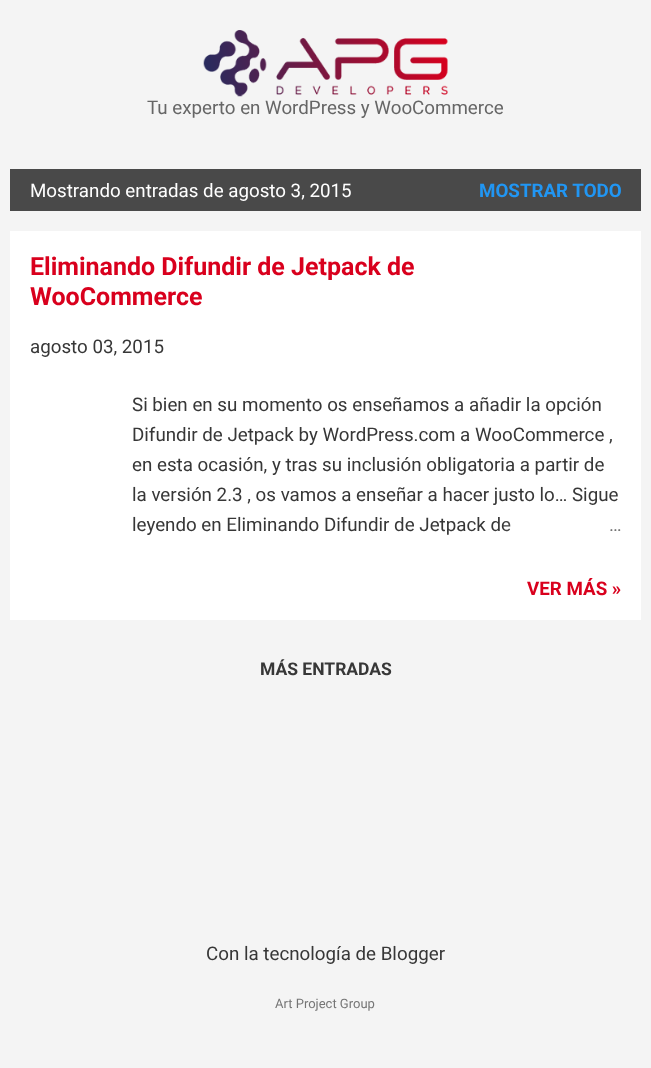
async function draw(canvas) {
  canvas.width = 651
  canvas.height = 1068
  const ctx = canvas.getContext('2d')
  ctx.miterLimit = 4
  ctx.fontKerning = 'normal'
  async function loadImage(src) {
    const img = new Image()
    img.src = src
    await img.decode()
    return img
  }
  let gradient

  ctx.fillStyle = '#f4f4f4'
  ctx.fillRect(0, 0, 651, 1068)
  ctx.drawImage(await loadImage('image0.png'), 203, 30, 245, 67)
  ctx.font = '18.75px Roboto'
  ctx.fillStyle = '#666'
  ctx.fillText('Tu experto en WordPress y WooCommerce', 147, 114)
  ctx.fillStyle = '#494949'
  ctx.fillRect(10, 169, 631, 42)
  ctx.fillStyle = '#fff'
  ctx.fillText('Mostrando entradas de agosto 3, 2015', 30, 197)
  ctx.font = 'bold 18.75px Roboto'
  ctx.fillStyle = '#2196f3'
  ctx.fillText('MOSTRAR TODO', 479, 197)
  ctx.fillStyle = '#fff'
  ctx.fillRect(10, 231, 631, 389)
  ctx.font = 'bold 25px Roboto'
  ctx.fillStyle = '#d9001d'
  ctx.fillText('Eliminando Difundir de Jetpack de', 30, 275)
  ctx.fillText('WooCommerce', 30, 305)
  ctx.font = '18.75px Roboto'
  ctx.fillStyle = '#373737'
  ctx.fillText('agosto 03, 2015', 30, 353)
  ctx.fillText('Si bien en su momento os enseñamos a añadir la opción', 132, 411)
  ctx.fillText('Difundir de Jetpack by WordPress.com a WooCommerce ,', 132, 441)
  ctx.fillText('en esta ocasión, y tras su inclusión obligatoria a partir de', 132, 471)
  ctx.fillText('la versión 2.3 , os vamos a enseñar a hacer justo lo… Sigue', 132, 501)
  ctx.fillText('leyendo en Eliminando Difundir de Jetpack de', 132, 531)
  gradient = ctx.createLinearGradient(621, 525, 501, 525)
  gradient.addColorStop(0, '#fff')
  gradient.addColorStop(0.2, '#fff')
  gradient.addColorStop(1, '#ffffff00')
  ctx.fillStyle = gradient
  ctx.fillRect(503, 521, 8, 10)
  ctx.fillStyle = '#757575'
  ctx.fillText('…', 609, 531)
  ctx.font = 'bold 18.75px Roboto'
  ctx.fillStyle = '#d9001d'
  ctx.fillText('VER MÁS »', 527, 595)
  ctx.font = 'bold 17.5px Roboto'
  ctx.fillStyle = '#373737'
  ctx.fillText('MÁS ENTRADAS', 260, 675)
  ctx.font = '18.75px Roboto'
  ctx.fillText('Con la tecnología de Blogger', 206, 960)
  ctx.font = '13px Roboto'
  ctx.fillStyle = '#757575'
  ctx.fillText('Art Project Group', 275, 1008)
}

draw(document.querySelector('canvas'))
